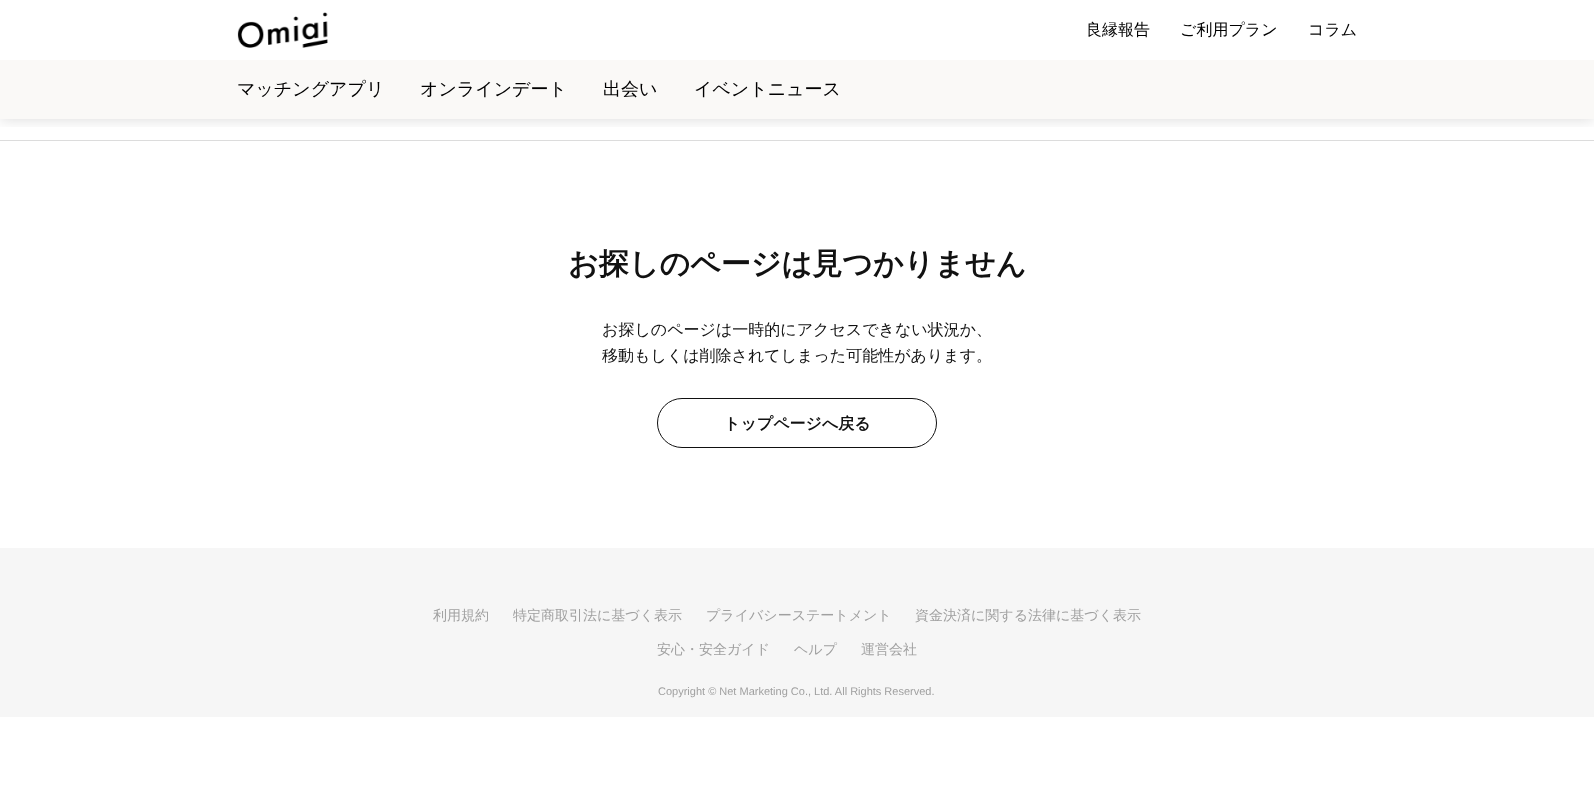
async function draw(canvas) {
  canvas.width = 1594
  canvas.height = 803
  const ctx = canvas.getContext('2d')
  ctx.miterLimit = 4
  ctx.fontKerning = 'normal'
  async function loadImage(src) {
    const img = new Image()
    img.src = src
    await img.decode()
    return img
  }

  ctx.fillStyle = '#fff'
  ctx.fillRect(0, 0, 1594, 803)
  ctx.fillStyle = '#dcdcdc'
  ctx.fillRect(0, 140, 1594, 1)
  ctx.save()
  ctx.beginPath()
  ctx.rect(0, 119, 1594, 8)
  ctx.clip()
  ctx.fillStyle = '#00000026'
  ctx.filter = 'blur(7.5px)'
  ctx.beginPath()
  ctx.rect(0, 0, 1594, 119)
  ctx.fill()
  ctx.filter = 'none'
  ctx.restore()
  ctx.drawImage(await loadImage('image0.png'), 237, 12, 91, 36)
  ctx.font = '500 16px WenQuanYi Zen Hei'
  ctx.fillStyle = '#000'
  ctx.fillText('良縁報告', 1086, 35)
  ctx.fillText('ご利用プラン', 1180, 35)
  ctx.fillText('コラム', 1308, 35)
  ctx.fillStyle = '#faf9f7'
  ctx.fillRect(0, 60, 1594, 59)
  ctx.font = '500 18px WenQuanYi Zen Hei'
  ctx.fillStyle = '#000'
  ctx.fillText('マッチングアプリ', 237, 95)
  ctx.fillText('オンラインデート', 420, 95)
  ctx.fillText('出会い', 603, 95)
  ctx.fillText('イベントニュース', 694, 95)
  ctx.font = 'bold 30px WenQuanYi Zen Hei'
  ctx.fillStyle = '#111'
  ctx.fillText('お探しのページは見つかりません', 568, 274)
  ctx.font = '500 16px WenQuanYi Zen Hei'
  ctx.fillText('お探しのページは一時的にアクセスできない状況か、', 602, 335)
  ctx.fillText('移動もしくは削除されてしまった可能性があります。', 602, 361)
  ctx.beginPath()
  ctx.roundRect(657.5, 398.5, 279, 49, 24.5)
  ctx.strokeStyle = '#111'
  ctx.stroke()
  ctx.font = 'bold 16px WenQuanYi Zen Hei'
  ctx.fillText('トップページへ戻る', 724, 429)
  ctx.fillStyle = '#f6f6f6'
  ctx.fillRect(0, 548, 1594, 169)
  ctx.font = '500 14px WenQuanYi Zen Hei'
  ctx.fillStyle = '#a0a0a0'
  ctx.fillText('利用規約', 433, 620)
  ctx.fillText('特定商取引法に基づく表示', 513, 620)
  ctx.fillText('プライバシーステートメント', 706, 620)
  ctx.fillText('資金決済に関する法律に基づく表示', 915, 620)
  ctx.fillText('安心・安全ガイド', 657, 654)
  ctx.fillText('ヘルプ', 794, 654)
  ctx.fillText('運営会社', 861, 654)
  ctx.font = '11px Liberation Sans'
  ctx.fillText('Copyright © Net Marketing Co., Ltd. All Rights Reserved.', 658, 695)
}

draw(document.querySelector('canvas'))
